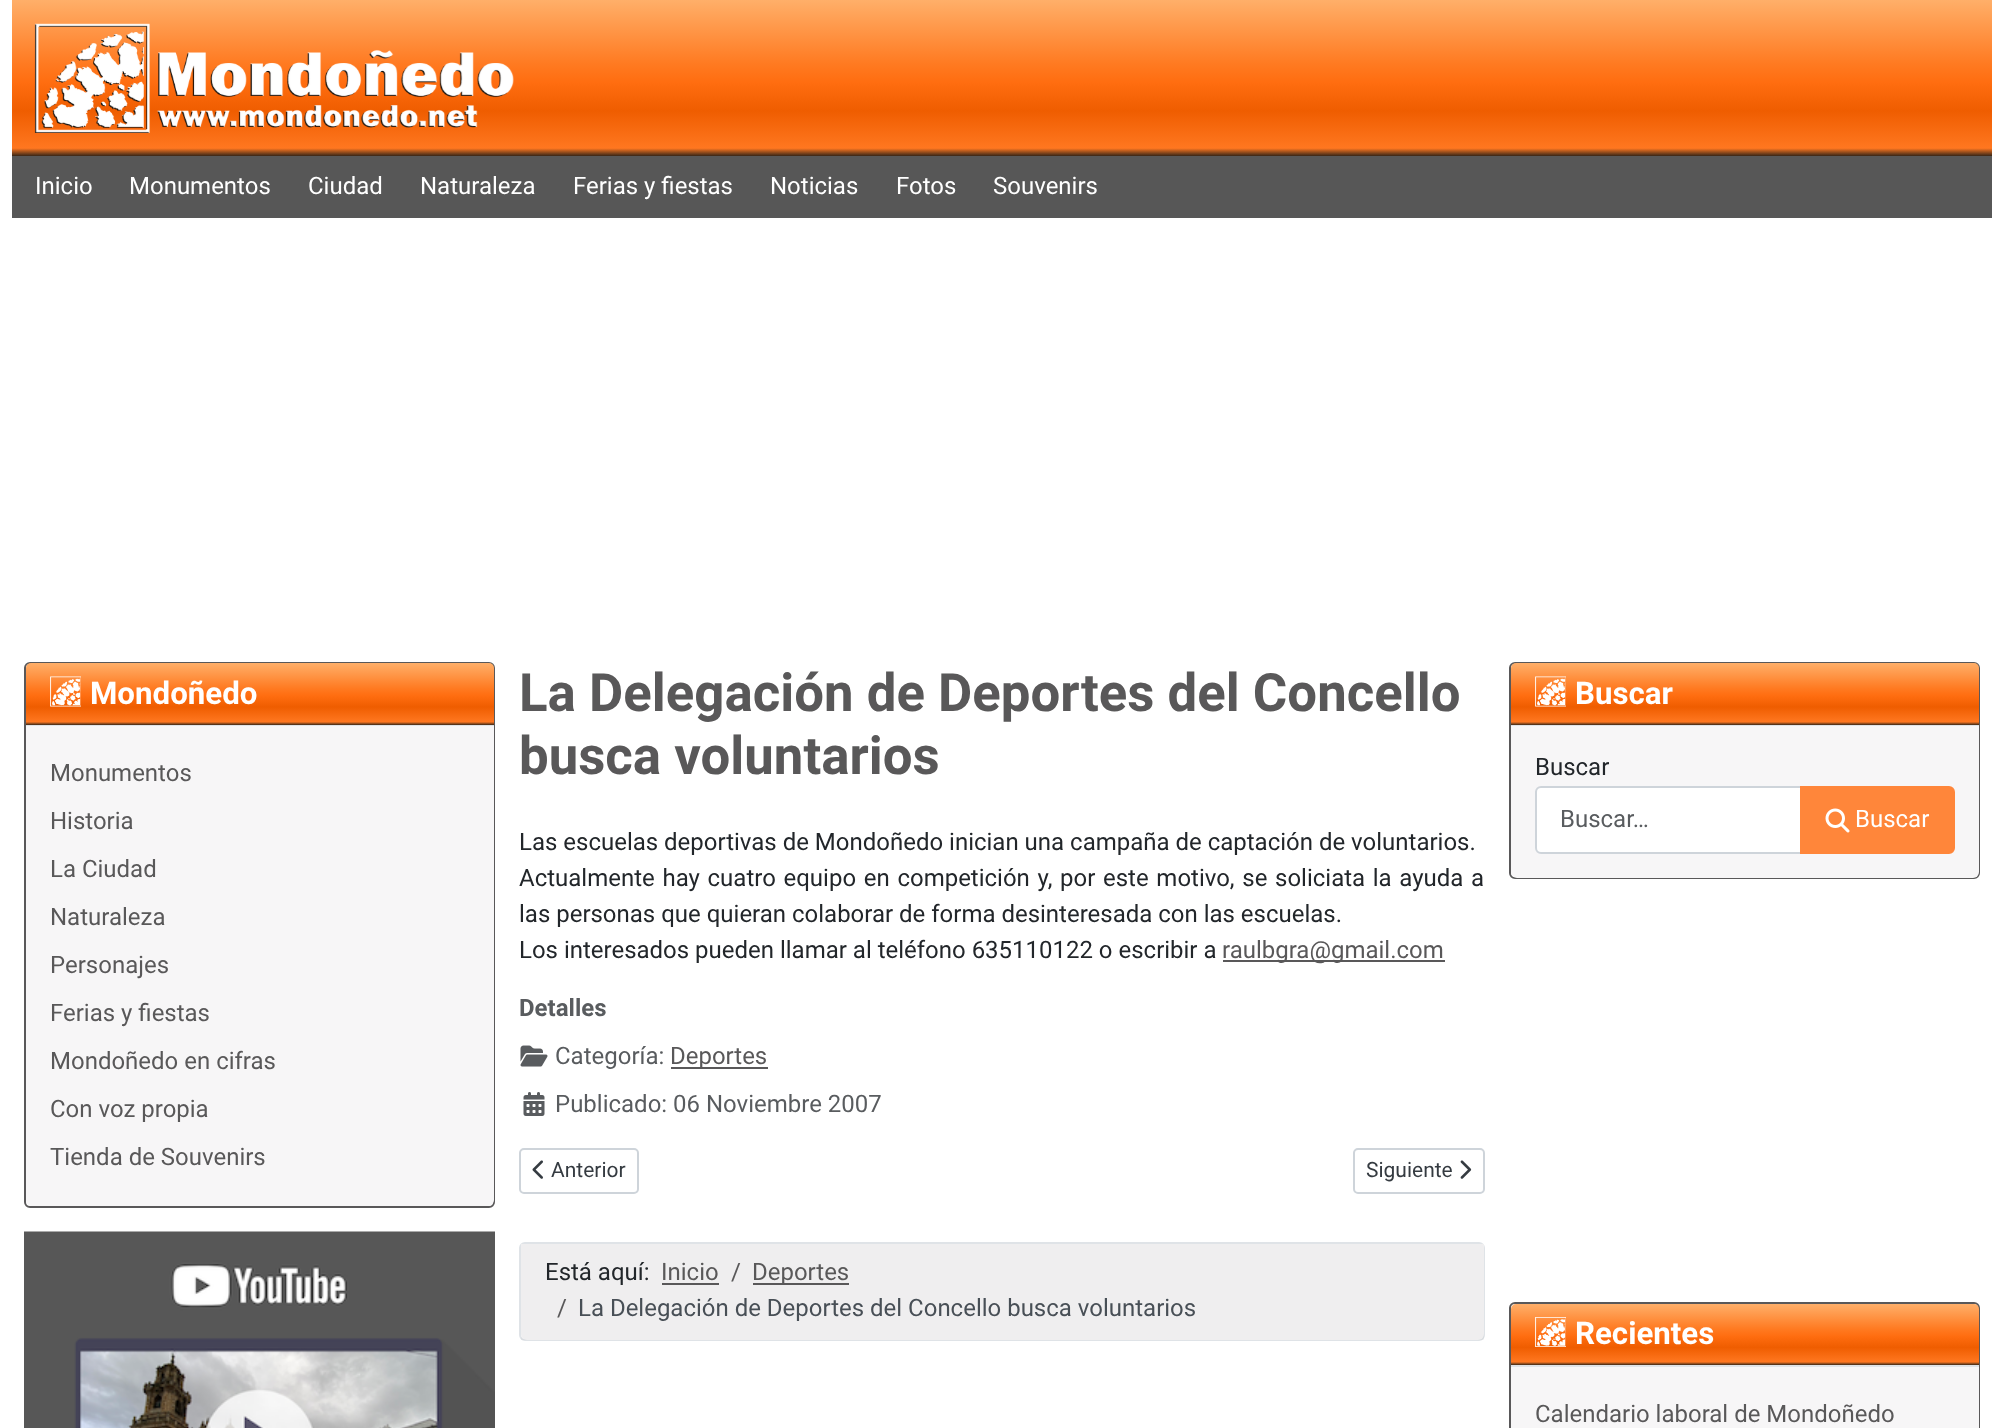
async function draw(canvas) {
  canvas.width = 2004
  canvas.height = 1428
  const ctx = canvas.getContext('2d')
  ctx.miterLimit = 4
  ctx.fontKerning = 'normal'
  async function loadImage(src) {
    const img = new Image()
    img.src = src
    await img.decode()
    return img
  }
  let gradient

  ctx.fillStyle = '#fff'
  ctx.fillRect(0, 0, 2004, 1428)
  gradient = ctx.createLinearGradient(1002, 0, 1002, 156)
  gradient.addColorStop(0, '#ffaf69')
  gradient.addColorStop(0.41, '#ff7a21')
  gradient.addColorStop(0.53, '#ff6d10')
  gradient.addColorStop(0.71, '#ef5d00')
  gradient.addColorStop(0.95, '#ff7720')
  gradient.addColorStop(1, '#372617')
  gradient.addColorStop(1, '#ff863a')
  ctx.fillStyle = gradient
  ctx.fillRect(12, 0, 1980, 156)
  ctx.drawImage(await loadImage('image0.png'), 34, 23, 480, 110)
  ctx.fillStyle = '#575757'
  ctx.fillRect(12, 156, 1980, 62)
  ctx.font = '24px Roboto'
  ctx.fillStyle = '#fff'
  ctx.fillText('Inicio', 35, 194)
  ctx.fillText('Monumentos', 129, 194)
  ctx.fillText('Ciudad', 308, 194)
  ctx.fillText('Naturaleza', 420, 194)
  ctx.fillText('Ferias y fiestas', 573, 194)
  ctx.fillText('Noticias', 770, 194)
  ctx.fillText('Fotos', 896, 194)
  ctx.fillText('Souvenirs', 993, 194)
  ctx.beginPath()
  ctx.roundRect(25, 663, 469, 544, 5)
  ctx.strokeStyle = '#595859'
  ctx.lineWidth = 2
  ctx.stroke()
  gradient = ctx.createLinearGradient(260, 663, 260, 725)
  gradient.addColorStop(0, '#ffaf69')
  gradient.addColorStop(0.41, '#ff7a21')
  gradient.addColorStop(0.53, '#ff6d10')
  gradient.addColorStop(0.71, '#ef5d00')
  gradient.addColorStop(0.95, '#ff7720')
  gradient.addColorStop(1, '#372617')
  gradient.addColorStop(1, '#ff863a')
  ctx.fillStyle = gradient
  ctx.beginPath()
  ctx.roundRect(26, 663, 468, 62, [5, 5, 0, 0])
  ctx.fill()
  ctx.fillStyle = '#dfe3e7'
  ctx.fillRect(26, 725, 468, 1)
  ctx.drawImage(await loadImage('image1.png'), 50, 676, 31, 31)
  ctx.font = 'bold 31.25px Roboto'
  ctx.fillStyle = '#fff'
  ctx.fillText('Mondoñedo', 90, 704)
  ctx.fillStyle = '#f7f6f7'
  ctx.beginPath()
  ctx.roundRect(26, 726, 468, 480, [0, 0, 6, 6])
  ctx.fill()
  ctx.font = '24px Roboto'
  ctx.fillStyle = '#595859'
  ctx.fillText('Monumentos', 50, 781)
  ctx.fillText('Historia', 50, 829)
  ctx.fillText('La Ciudad', 50, 877)
  ctx.fillText('Naturaleza', 50, 925)
  ctx.fillText('Personajes', 50, 973)
  ctx.fillText('Ferias y fiestas', 50, 1021)
  ctx.fillText('Mondoñedo en cifras', 50, 1069)
  ctx.fillText('Con voz propia', 50, 1117)
  ctx.fillText('Tienda de Souvenirs', 50, 1165)
  ctx.drawImage(await loadImage('image2.png'), 24, 1231, 471, 197)
  ctx.font = 'bold 52.75px Roboto'
  ctx.fillText('La Delegación de Deportes del Concello', 519, 711)
  ctx.fillText('busca voluntarios', 519, 774)
  ctx.font = '24px Roboto'
  ctx.fillStyle = '#22262a'
  ctx.fillText('Las escuelas deportivas de Mondoñedo inician una campaña de captación de voluntarios.', 519, 850)
  ctx.wordSpacing = '1.75px'
  ctx.fillText('Actualmente hay cuatro equipo en competición y, por este motivo, se soliciata la ayuda a', 519, 886)
  ctx.wordSpacing = '0px'
  ctx.fillText('las personas que quieran colaborar de forma desinteresada con las escuelas.', 519, 922)
  ctx.fillText('Los interesados pueden llamar al teléfono 635110122 o escribir a', 519, 958)
  ctx.fillStyle = '#595859'
  ctx.fillRect(1223, 960, 222, 2)
  ctx.fillText('raulbgra@gmail.com', 1222, 958)
  ctx.font = 'bold 24px Roboto'
  ctx.fillStyle = '#595c5f'
  ctx.fillText('Detalles', 519, 1016)
  ctx.drawImage(await loadImage('image3.png'), 520, 1045, 28, 22)
  ctx.font = '24px Roboto'
  ctx.fillText('Categoría:', 555, 1064)
  ctx.fillStyle = '#595859'
  ctx.fillRect(671, 1067, 97, 2)
  ctx.fillText('Deportes', 670, 1064)
  ctx.drawImage(await loadImage('image4.png'), 523, 1092, 22, 24)
  ctx.fillStyle = '#595c5f'
  ctx.fillText('Publicado: 06 Noviembre 2007', 555, 1112)
  ctx.beginPath()
  ctx.roundRect(520, 1149, 118, 44, 4)
  ctx.strokeStyle = '#ced4da'
  ctx.stroke()
  ctx.drawImage(await loadImage('image5.png'), 532, 1160, 11, 19)
  ctx.font = '21px Roboto'
  ctx.fillStyle = '#353b41'
  ctx.fillText('Anterior', 551, 1177)
  ctx.beginPath()
  ctx.roundRect(1354, 1149, 130, 44, 4)
  ctx.stroke()
  ctx.fillText('Siguiente', 1366, 1177)
  ctx.drawImage(await loadImage('image6.png'), 1460, 1160, 12, 19)
  ctx.beginPath()
  ctx.roundRect(520, 1243, 964, 97, 5)
  ctx.strokeStyle = '#dfe3e7'
  ctx.stroke()
  ctx.fillStyle = '#f7f6f7'
  ctx.beginPath()
  ctx.roundRect(521, 1244, 963, 96, [0, 0, 6, 6])
  ctx.fill()
  ctx.fillStyle = '#00000008'
  ctx.fillRect(521, 1244, 963, 96)
  ctx.font = '24px Roboto'
  ctx.fillStyle = '#22262a'
  ctx.fillText('Está aquí:', 545, 1280)
  ctx.fillStyle = '#595859'
  ctx.fillText('Inicio', 661, 1280)
  ctx.fillRect(662, 1283, 57, 2)
  ctx.fillText('/', 731, 1280)
  ctx.fillRect(753, 1283, 96, 2)
  ctx.fillText('Deportes', 752, 1280)
  ctx.fillText('/', 557, 1316)
  ctx.fillStyle = '#484f56'
  ctx.fillText('La Delegación de Deportes del Concello busca voluntarios', 578, 1316)
  ctx.beginPath()
  ctx.roundRect(1510, 663, 469, 215, 5)
  ctx.strokeStyle = '#595859'
  ctx.stroke()
  gradient = ctx.createLinearGradient(1745, 663, 1745, 725)
  gradient.addColorStop(0, '#ffaf69')
  gradient.addColorStop(0.41, '#ff7a21')
  gradient.addColorStop(0.53, '#ff6d10')
  gradient.addColorStop(0.71, '#ef5d00')
  gradient.addColorStop(0.95, '#ff7720')
  gradient.addColorStop(1, '#372617')
  gradient.addColorStop(1, '#ff863a')
  ctx.fillStyle = gradient
  ctx.beginPath()
  ctx.roundRect(1511, 663, 468, 62, [5, 5, 0, 0])
  ctx.fill()
  ctx.fillStyle = '#dfe3e7'
  ctx.fillRect(1511, 725, 468, 1)
  ctx.drawImage(await loadImage('image1.png'), 1535, 676, 31, 31)
  ctx.font = 'bold 31.25px Roboto'
  ctx.fillStyle = '#fff'
  ctx.fillText('Buscar', 1575, 704)
  ctx.fillStyle = '#f7f6f7'
  ctx.beginPath()
  ctx.roundRect(1511, 726, 468, 152, [0, 0, 6, 6])
  ctx.fill()
  ctx.font = '24px Roboto'
  ctx.fillStyle = '#22262a'
  ctx.fillText('Buscar', 1535, 775)
  ctx.fillStyle = '#fff'
  ctx.beginPath()
  ctx.roundRect(1536, 787, 265, 66, [5, 0, 0, 5])
  ctx.fill()
  ctx.strokeStyle = '#ced4da'
  ctx.stroke()
  ctx.fillStyle = '#595c5f'
  ctx.fillText('Buscar…', 1560, 827)
  ctx.fillStyle = '#ff863a'
  ctx.beginPath()
  ctx.roundRect(1801, 787, 153, 66, [0, 5, 5, 0])
  ctx.fill()
  ctx.strokeStyle = '#ff863a'
  ctx.stroke()
  ctx.drawImage(await loadImage('image7.png'), 1825, 808, 25, 25)
  ctx.fillStyle = '#fff'
  ctx.fillText('Buscar', 1855, 827)
  ctx.beginPath()
  ctx.roundRect(1510, 1303, 469, 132, 5)
  ctx.strokeStyle = '#595859'
  ctx.stroke()
  gradient = ctx.createLinearGradient(1745, 1304, 1745, 1365)
  gradient.addColorStop(0, '#ffaf69')
  gradient.addColorStop(0.41, '#ff7a21')
  gradient.addColorStop(0.53, '#ff6d10')
  gradient.addColorStop(0.71, '#ef5d00')
  gradient.addColorStop(0.95, '#ff7720')
  gradient.addColorStop(1, '#372617')
  gradient.addColorStop(1, '#ff863a')
  ctx.fillStyle = gradient
  ctx.beginPath()
  ctx.roundRect(1511, 1304, 468, 61, [5, 5, 0, 0])
  ctx.fill()
  ctx.fillStyle = '#dfe3e7'
  ctx.fillRect(1511, 1365, 468, 2)
  ctx.drawImage(await loadImage('image8.png'), 1535, 1317, 31, 30)
  ctx.font = 'bold 31.25px Roboto'
  ctx.fillStyle = '#fff'
  ctx.fillText('Recientes', 1575, 1344)
  ctx.fillStyle = '#f7f6f7'
  ctx.fillRect(1511, 1367, 468, 61)
  ctx.font = '24px Roboto'
  ctx.fillStyle = '#595859'
  ctx.fillText('Calendario laboral de Mondoñedo', 1535, 1422)
}

draw(document.querySelector('canvas'))
